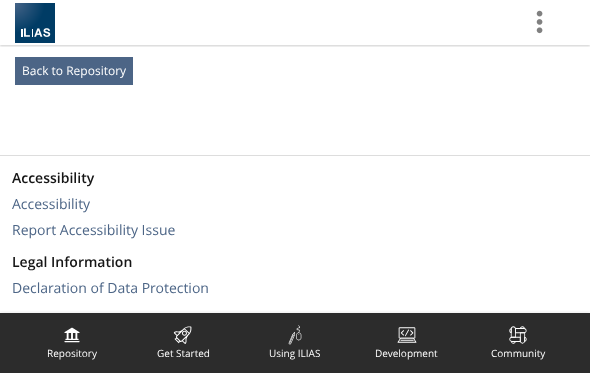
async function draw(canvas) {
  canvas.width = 590
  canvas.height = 373
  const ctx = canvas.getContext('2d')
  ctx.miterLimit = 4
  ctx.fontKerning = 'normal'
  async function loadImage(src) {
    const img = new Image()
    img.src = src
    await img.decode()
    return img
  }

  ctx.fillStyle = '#fff'
  ctx.fillRect(0, 0, 590, 373)
  ctx.save()
  ctx.beginPath()
  ctx.rect(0, 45, 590, 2)
  ctx.clip()
  ctx.fillStyle = '#0000001a'
  ctx.filter = 'blur(1px)'
  ctx.beginPath()
  ctx.rect(0, 1, 590, 45)
  ctx.fill()
  ctx.filter = 'none'
  ctx.filter = 'blur(1px)'
  ctx.beginPath()
  ctx.rect(0, 1, 590, 45)
  ctx.fill()
  ctx.filter = 'none'
  ctx.restore()
  ctx.drawImage(await loadImage('image0.png'), 15, 3, 40, 40)
  ctx.drawImage(await loadImage('image1.png'), 536, 10, 7, 24)
  ctx.fillStyle = '#4c6586'
  ctx.fillRect(15, 57, 118, 28)
  ctx.font = '12px Open Sans'
  ctx.fillStyle = '#fff'
  ctx.fillText('Back to Repository', 22, 75)
  ctx.fillStyle = '#ddd'
  ctx.fillRect(0, 155, 590, 1)
  ctx.font = '600 14px Open Sans'
  ctx.fillStyle = '#161616'
  ctx.fillText('Accessibility', 12, 183)
  ctx.font = '14px Open Sans'
  ctx.fillStyle = '#4c6586'
  ctx.fillText('Accessibility', 12, 209)
  ctx.fillText('Report Accessibility Issue', 12, 235)
  ctx.font = '600 14px Open Sans'
  ctx.fillStyle = '#161616'
  ctx.fillText('Legal Information', 12, 267)
  ctx.font = '14px Open Sans'
  ctx.fillStyle = '#4c6586'
  ctx.fillText('Declaration of Data Protection', 12, 293)
  ctx.fillStyle = '#2c2c2c'
  ctx.fillRect(0, 313, 590, 60)
  ctx.save()
  ctx.beginPath()
  ctx.rect(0, 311, 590, 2)
  ctx.clip()
  ctx.fillStyle = '#0000001a'
  ctx.filter = 'blur(2px)'
  ctx.beginPath()
  ctx.rect(0, 313, 590, 60)
  ctx.fill()
  ctx.filter = 'none'
  ctx.restore()
  ctx.drawImage(await loadImage('image2.png'), 64, 327, 16, 16)
  ctx.font = '10px Open Sans'
  ctx.fillStyle = '#fff'
  ctx.fillText('Repository', 47, 357)
  ctx.drawImage(await loadImage('image3.png'), 173, 326, 19, 18)
  ctx.fillText('Get Started', 157, 357)
  ctx.drawImage(await loadImage('image4.png'), 288, 325, 14, 20)
  ctx.fillText('Using ILIAS', 269, 357)
  ctx.drawImage(await loadImage('image5.png'), 397, 327, 20, 16)
  ctx.fillText('Development', 375, 357)
  ctx.drawImage(await loadImage('image6.png'), 509, 326, 18, 18)
  ctx.fillText('Community', 491, 357)
}

draw(document.querySelector('canvas'))
